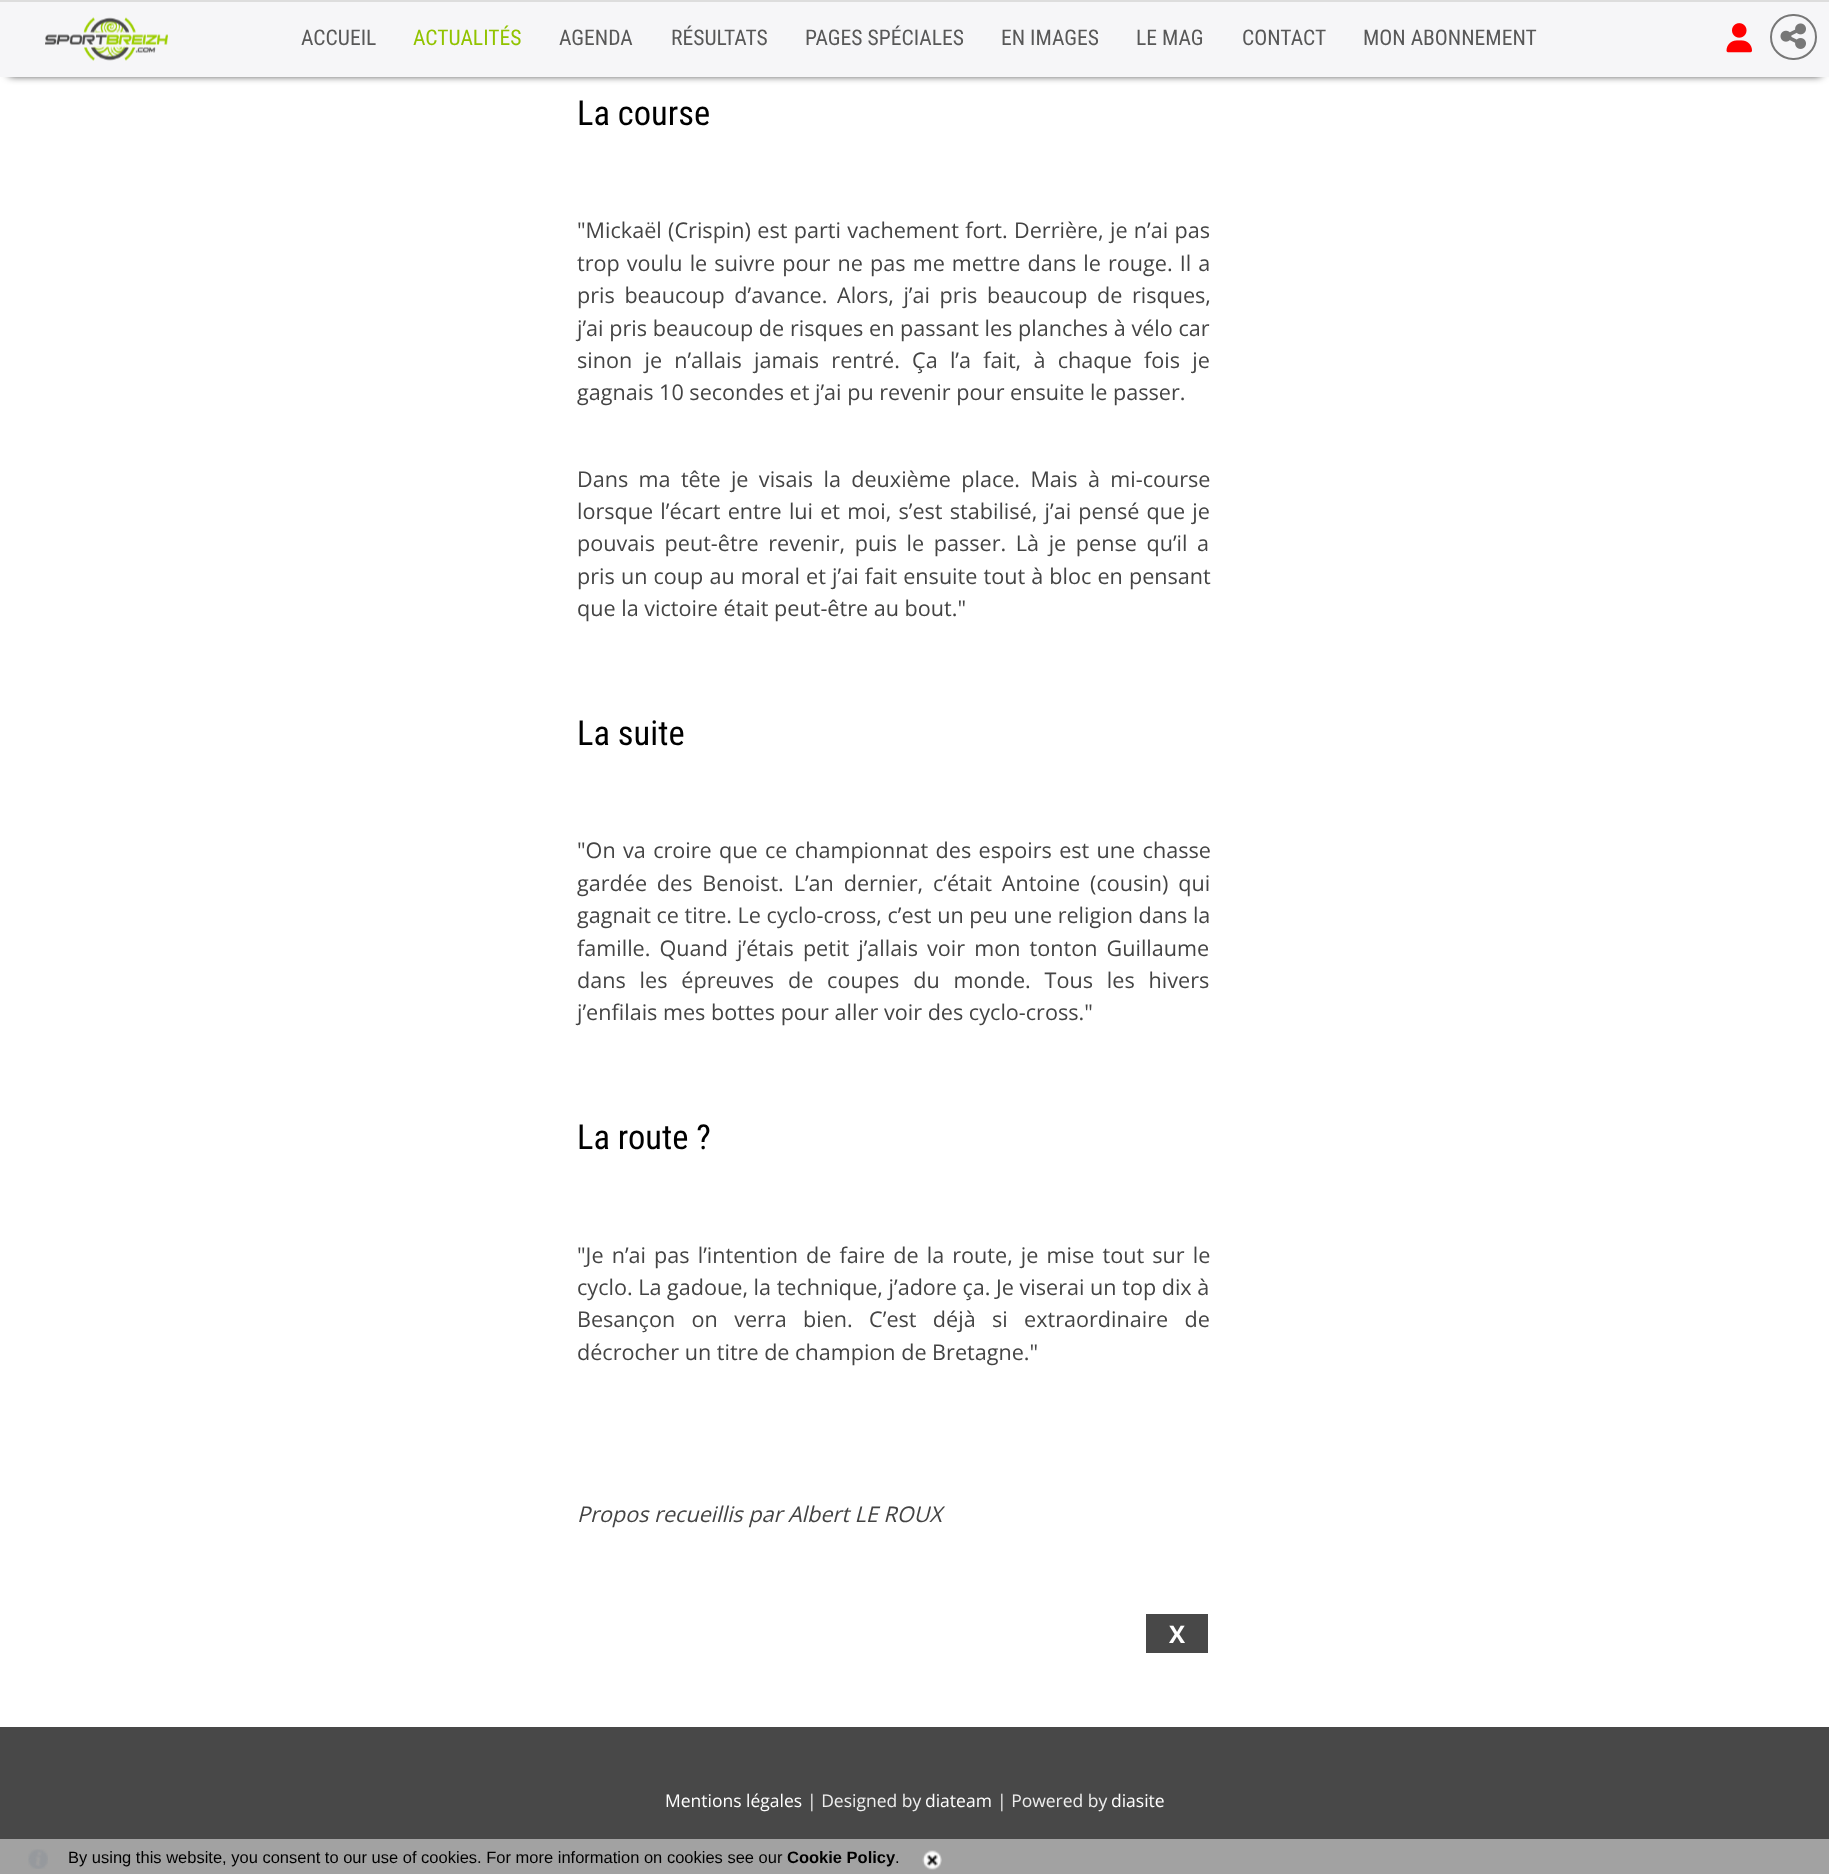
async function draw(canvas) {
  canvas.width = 1829
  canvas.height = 1874
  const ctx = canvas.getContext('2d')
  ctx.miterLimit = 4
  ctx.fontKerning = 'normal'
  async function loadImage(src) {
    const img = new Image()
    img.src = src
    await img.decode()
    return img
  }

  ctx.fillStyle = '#fff'
  ctx.fillRect(0, 0, 1829, 1874)
  ctx.fillStyle = '#000'
  ctx.filter = 'blur(4px)'
  ctx.beginPath()
  ctx.rect(9, 17, 1812, 58)
  ctx.fill()
  ctx.filter = 'none'
  ctx.fillStyle = '#f6f6f8'
  ctx.fillRect(0, 2, 1829, 75)
  ctx.fillStyle = '#ddd'
  ctx.fillRect(0, 0, 1829, 2)
  ctx.drawImage(await loadImage('image0.png'), 45, 17, 123, 44)
  ctx.font = '21.6px Roboto Condensed'
  ctx.fillStyle = '#585858'
  ctx.fillText('ACCUEIL', 301, 45)
  ctx.fillStyle = '#91c300'
  ctx.fillText('ACTUALITÉS', 413, 45)
  ctx.fillStyle = '#585858'
  ctx.fillText('AGENDA', 559, 45)
  ctx.fillText('RÉSULTATS', 671, 45)
  ctx.fillText('PAGES SPÉCIALES', 805, 45)
  ctx.fillText('EN IMAGES', 1001, 45)
  ctx.fillText('LE MAG', 1136, 45)
  ctx.fillText('CONTACT', 1242, 45)
  ctx.fillText('MON ABONNEMENT', 1363, 45)
  ctx.drawImage(await loadImage('image1.png'), 1726, 23, 26, 30)
  ctx.beginPath()
  ctx.roundRect(1771, 15, 45, 44, 22)
  ctx.strokeStyle = '#777'
  ctx.lineWidth = 2
  ctx.stroke()
  ctx.drawImage(await loadImage('image2.png'), 1780, 23, 26, 26)
  ctx.font = '34.5px Roboto Condensed'
  ctx.fillStyle = '#000'
  ctx.fillText('La course', 577, 125)
  ctx.wordSpacing = '0.75px'
  ctx.font = '21.6px Open Sans'
  ctx.fillStyle = '#444'
  ctx.fillText('"Mickaël (Crispin) est parti vachement fort. Derrière, je n’ai pas', 577, 238)
  ctx.wordSpacing = '1.5px'
  ctx.fillText('trop voulu le suivre pour ne pas me mettre dans le rouge. Il a', 577, 271)
  ctx.wordSpacing = '4px'
  ctx.fillText('pris beaucoup d’avance. Alors, j’ai pris beaucoup de risques,', 577, 303)
  ctx.wordSpacing = '0.1px'
  ctx.fillText('j’ai pris beaucoup de risques en passant les planches à vélo car', 577, 336)
  ctx.wordSpacing = '6.6px'
  ctx.fillText('sinon je n’allais jamais rentré. Ça l’a fait, à chaque fois je', 577, 368)
  ctx.wordSpacing = '0px'
  ctx.fillText('gagnais 10 secondes et j’ai pu revenir pour ensuite le passer.', 577, 400)
  ctx.wordSpacing = '4.75px'
  ctx.fillText('Dans ma tête je visais la deuxième place. Mais à mi-course', 577, 487)
  ctx.wordSpacing = '1.6px'
  ctx.fillText('lorsque l’écart entre lui et moi, s’est stabilisé, j’ai pensé que je', 577, 519)
  ctx.wordSpacing = '4px'
  ctx.fillText('pouvais peut-être revenir, puis le passer. Là je pense qu’il a', 577, 551)
  ctx.wordSpacing = '0.5px'
  ctx.fillText('pris un coup au moral et j’ai fait ensuite tout à bloc en pensant', 577, 584)
  ctx.wordSpacing = '0px'
  ctx.fillText('que la victoire était peut-être au bout."', 577, 616)
  ctx.font = '34.5px Roboto Condensed'
  ctx.fillStyle = '#000'
  ctx.fillText('La suite', 577, 745)
  ctx.wordSpacing = '1.75px'
  ctx.font = '21.6px Open Sans'
  ctx.fillStyle = '#444'
  ctx.fillText('"On va croire que ce championnat des espoirs est une chasse', 577, 858)
  ctx.wordSpacing = '4.25px'
  ctx.fillText('gardée des Benoist. L’an dernier, c’était Antoine (cousin) qui', 577, 891)
  ctx.wordSpacing = '0px'
  ctx.fillText('gagnait ce titre. Le cyclo-cross, c’est un peu une religion dans la', 577, 923)
  ctx.wordSpacing = '3.5px'
  ctx.fillText('famille. Quand j’étais petit j’allais voir mon tonton Guillaume', 577, 956)
  ctx.wordSpacing = '8.25px'
  ctx.fillText('dans les épreuves de coupes du monde. Tous les hivers', 577, 988)
  ctx.wordSpacing = '0px'
  ctx.fillText('j’enfilais mes bottes pour aller voir des cyclo-cross."', 577, 1020)
  ctx.font = '34.5px Roboto Condensed'
  ctx.fillStyle = '#000'
  ctx.fillText('La route ?', 577, 1149)
  ctx.wordSpacing = '2.5px'
  ctx.font = '21.6px Open Sans'
  ctx.fillStyle = '#444'
  ctx.fillText('"Je n’ai pas l’intention de faire de la route, je mise tout sur le', 577, 1263)
  ctx.wordSpacing = '0px'
  ctx.fillText('cyclo. La gadoue, la technique, j’adore ça. Je viserai un top dix à', 577, 1295)
  ctx.wordSpacing = '10.75px'
  ctx.fillText('Besançon on verra bien. C’est déjà si extraordinaire de', 577, 1327)
  ctx.wordSpacing = '0px'
  ctx.fillText('décrocher un titre de champion de Bretagne."', 577, 1360)
  ctx.font = 'italic 21.6px Open Sans'
  ctx.fillText('Propos recueillis par Albert LE ROUX', 577, 1522)
  ctx.fillStyle = '#484848'
  ctx.fillRect(1146, 1614, 62, 39)
  ctx.font = 'bold 24px Open Sans'
  ctx.fillStyle = '#fff'
  ctx.fillText('X', 1169, 1643)
  ctx.fillStyle = '#484848'
  ctx.fillRect(0, 1727, 1829, 112)
  ctx.font = '17.5px Open Sans'
  ctx.fillStyle = '#fff'
  ctx.fillText('Mentions légales', 665, 1807)
  ctx.fillStyle = '#eee'
  ctx.fillText('| Designed by', 807, 1807)
  ctx.fillStyle = '#fff'
  ctx.fillText('diateam', 925, 1807)
  ctx.fillStyle = '#eee'
  ctx.fillText('| Powered by', 997, 1807)
  ctx.fillStyle = '#fff'
  ctx.fillText('diasite', 1111, 1807)
  ctx.fillStyle = '#a2a2a2'
  ctx.fillRect(0, 1839, 1829, 35)
  ctx.drawImage(await loadImage('image3.png'), 28, 1849, 20, 20)
  ctx.font = '16.5px Liberation Sans'
  ctx.fillStyle = '#000'
  ctx.fillText('By using this website, you consent to our use of cookies. For more information on cookies see our', 68, 1863)
  ctx.font = 'bold 16.5px Liberation Sans'
  ctx.fillText('Cookie Policy', 787, 1863)
  ctx.font = '16.5px Liberation Sans'
  ctx.fillText('.', 895, 1863)
  ctx.drawImage(await loadImage('image4.png'), 922, 1850, 20, 20)
}

draw(document.querySelector('canvas'))
